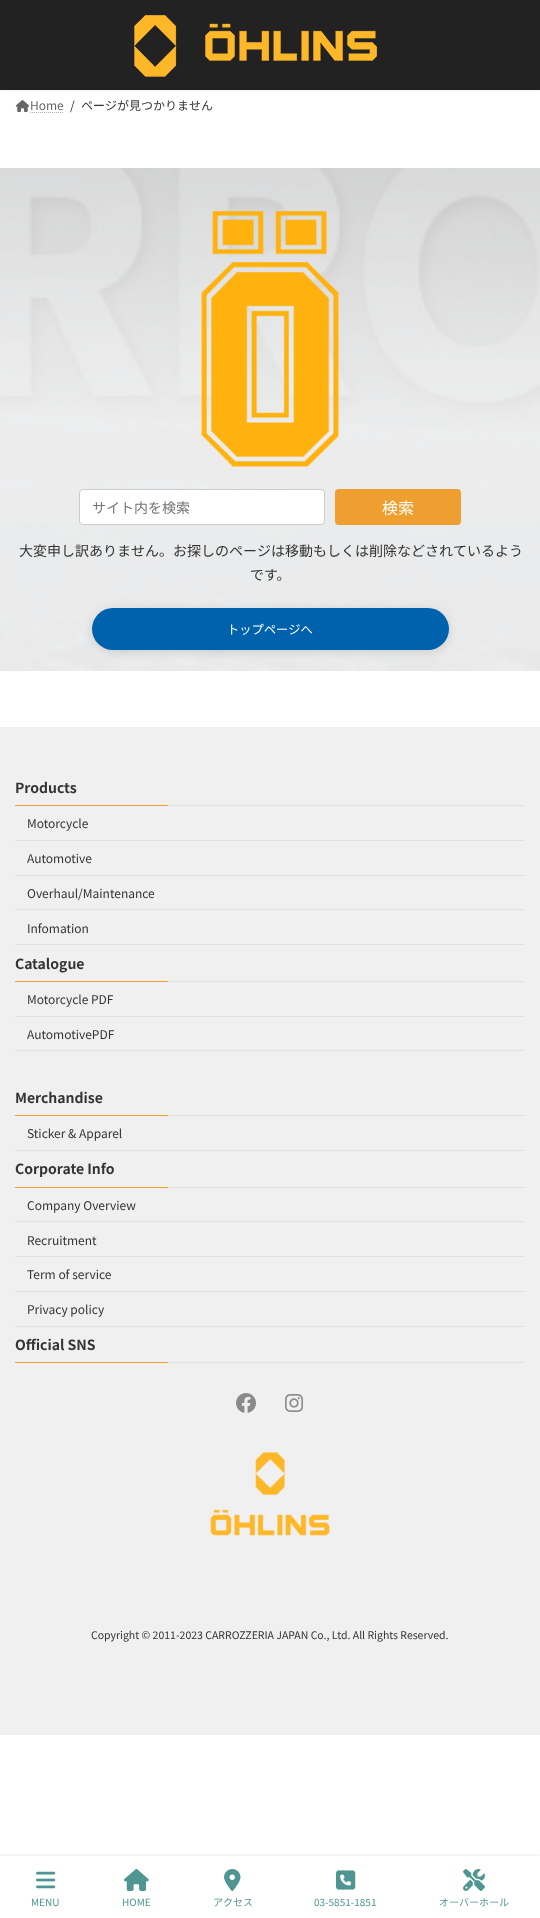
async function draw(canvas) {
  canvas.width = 540
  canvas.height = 1918
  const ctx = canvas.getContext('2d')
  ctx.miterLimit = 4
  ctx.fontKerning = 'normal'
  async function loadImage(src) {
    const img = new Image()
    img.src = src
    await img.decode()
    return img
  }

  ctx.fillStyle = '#fff'
  ctx.fillRect(0, 0, 540, 1918)
  ctx.fillStyle = '#0000000d'
  ctx.filter = 'blur(1.5px)'
  ctx.beginPath()
  ctx.rect(0, 1, 540, 90)
  ctx.fill()
  ctx.filter = 'none'
  ctx.fillStyle = '#222'
  ctx.fillRect(0, 0, 540, 90)
  ctx.drawImage(await loadImage('image0.png'), 134, 15, 243, 62)
  ctx.drawImage(await loadImage('image1.png'), 15, 100, 15, 12)
  ctx.font = '12px Noto Sans JP'
  ctx.fillStyle = '#666'
  ctx.fillText('Home', 30, 110)
  ctx.beginPath()
  ctx.moveTo(30, 112.5)
  ctx.lineTo(64, 112.5)
  ctx.strokeStyle = '#b3b3b3'
  ctx.setLineDash([1, 1])
  ctx.stroke()
  ctx.fillStyle = '#333'
  ctx.fillText('/', 70, 110)
  ctx.fillText('ページが見つかりません', 81, 110)
  ctx.drawImage(await loadImage('image2.png'), 0, 168, 540, 503)
  ctx.drawImage(await loadImage('image3.png'), 201, 210, 138, 257)
  ctx.fillStyle = '#fff'
  ctx.beginPath()
  ctx.roundRect(79.5, 489.5, 245, 35, 3.5)
  ctx.fill()
  ctx.strokeStyle = '#ccc'
  ctx.setLineDash([])
  ctx.stroke()
  ctx.font = '14px Noto Sans JP'
  ctx.fillStyle = '#757575'
  ctx.fillText('サイト内を検索', 92, 513)
  ctx.fillStyle = '#ef9f2f'
  ctx.beginPath()
  ctx.roundRect(335, 489, 126, 36, 4)
  ctx.fill()
  ctx.font = '16px Noto Sans JP'
  ctx.fillStyle = '#fff'
  ctx.fillText('検索', 382, 514)
  ctx.font = '14px Noto Sans JP'
  ctx.fillStyle = '#333'
  ctx.fillText('大変申し訳ありません。お探しのページは移動もしくは削除などされているよう', 19, 556)
  ctx.fillText('です。', 250, 580)
  ctx.fillStyle = '#0000001f'
  ctx.filter = 'blur(5px)'
  ctx.beginPath()
  ctx.roundRect(92, 610, 357, 42, 21)
  ctx.fill()
  ctx.filter = 'none'
  ctx.fillStyle = '#0061ad'
  ctx.beginPath()
  ctx.roundRect(92, 608, 357, 42, 21)
  ctx.fill()
  ctx.font = '12.25px Noto Sans JP'
  ctx.fillStyle = '#fff'
  ctx.fillText('トップページへ', 227, 634)
  ctx.fillStyle = '#f0f0f0'
  ctx.fillRect(0, 727, 540, 1008)
  ctx.fillStyle = '#e2e2e2'
  ctx.fillRect(168, 805, 357, 1)
  ctx.font = 'bold 14px Noto Sans JP'
  ctx.fillStyle = '#333'
  ctx.fillText('Products', 15, 793)
  ctx.fillStyle = '#ef9f2f'
  ctx.fillRect(15, 805, 153, 1)
  ctx.fillStyle = '#e2e2e2'
  ctx.fillRect(15, 840, 510, 1)
  ctx.font = '12px Noto Sans JP'
  ctx.fillStyle = '#333'
  ctx.fillText('Motorcycle', 27, 828)
  ctx.fillStyle = '#e2e2e2'
  ctx.fillRect(15, 875, 510, 1)
  ctx.fillStyle = '#333'
  ctx.fillText('Automotive', 27, 863)
  ctx.fillStyle = '#e2e2e2'
  ctx.fillRect(15, 909, 510, 1)
  ctx.fillStyle = '#333'
  ctx.fillText('Overhaul/Maintenance', 27, 898)
  ctx.fillStyle = '#e2e2e2'
  ctx.fillRect(15, 944, 510, 1)
  ctx.fillStyle = '#333'
  ctx.fillText('Infomation', 27, 933)
  ctx.fillStyle = '#e2e2e2'
  ctx.fillRect(168, 981, 357, 1)
  ctx.font = 'bold 14px Noto Sans JP'
  ctx.fillStyle = '#333'
  ctx.fillText('Catalogue', 15, 969)
  ctx.fillStyle = '#ef9f2f'
  ctx.fillRect(15, 981, 153, 1)
  ctx.fillStyle = '#e2e2e2'
  ctx.fillRect(15, 1016, 510, 1)
  ctx.font = '12px Noto Sans JP'
  ctx.fillStyle = '#333'
  ctx.fillText('Motorcycle PDF', 27, 1004)
  ctx.fillStyle = '#e2e2e2'
  ctx.fillRect(15, 1050, 510, 1)
  ctx.fillStyle = '#333'
  ctx.fillText('AutomotivePDF', 27, 1039)
  ctx.fillStyle = '#e2e2e2'
  ctx.fillRect(168, 1115, 357, 1)
  ctx.font = 'bold 14px Noto Sans JP'
  ctx.fillStyle = '#333'
  ctx.fillText('Merchandise', 15, 1103)
  ctx.fillStyle = '#ef9f2f'
  ctx.fillRect(15, 1115, 153, 1)
  ctx.fillStyle = '#e2e2e2'
  ctx.fillRect(15, 1150, 510, 1)
  ctx.font = '12px Noto Sans JP'
  ctx.fillStyle = '#333'
  ctx.fillText('Sticker & Apparel', 27, 1138)
  ctx.fillStyle = '#e2e2e2'
  ctx.fillRect(168, 1187, 357, 1)
  ctx.font = 'bold 14px Noto Sans JP'
  ctx.fillStyle = '#333'
  ctx.fillText('Corporate Info', 15, 1174)
  ctx.fillStyle = '#ef9f2f'
  ctx.fillRect(15, 1187, 153, 1)
  ctx.fillStyle = '#e2e2e2'
  ctx.fillRect(15, 1221, 510, 1)
  ctx.font = '12px Noto Sans JP'
  ctx.fillStyle = '#333'
  ctx.fillText('Company Overview', 27, 1210)
  ctx.fillStyle = '#e2e2e2'
  ctx.fillRect(15, 1256, 510, 1)
  ctx.fillStyle = '#333'
  ctx.fillText('Recruitment', 27, 1245)
  ctx.fillStyle = '#e2e2e2'
  ctx.fillRect(15, 1291, 510, 1)
  ctx.fillStyle = '#333'
  ctx.fillText('Term of service', 27, 1279)
  ctx.fillStyle = '#e2e2e2'
  ctx.fillRect(15, 1326, 510, 1)
  ctx.fillStyle = '#333'
  ctx.fillText('Privacy policy', 27, 1314)
  ctx.fillStyle = '#e2e2e2'
  ctx.fillRect(168, 1362, 357, 1)
  ctx.font = 'bold 14px Noto Sans JP'
  ctx.fillStyle = '#333'
  ctx.fillText('Official SNS', 15, 1350)
  ctx.fillStyle = '#ef9f2f'
  ctx.fillRect(15, 1362, 153, 1)
  ctx.drawImage(await loadImage('image4.png'), 236, 1393, 20, 20)
  ctx.drawImage(await loadImage('image5.png'), 285, 1394, 18, 18)
  ctx.drawImage(await loadImage('image6.png'), 210, 1452, 120, 84)
  ctx.font = '10.5px Noto Sans JP'
  ctx.fillStyle = '#333'
  ctx.fillText('Copyright © 2011-2023 CARROZZERIA JAPAN Co., Ltd. All Rights Reserved.', 91, 1639)
  ctx.save()
  ctx.beginPath()
  ctx.rect(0, 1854, 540, 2)
  ctx.clip()
  ctx.fillStyle = '#0000001f'
  ctx.filter = 'blur(2.5px)'
  ctx.beginPath()
  ctx.rect(0, 1856, 540, 62)
  ctx.fill()
  ctx.filter = 'none'
  ctx.restore()
  ctx.drawImage(await loadImage('image7.png'), 36, 1871, 20, 18)
  ctx.font = '10px Noto Sans JP'
  ctx.fillStyle = '#509792'
  ctx.fillText('MENU', 31, 1906)
  ctx.drawImage(await loadImage('image8.png'), 124, 1869, 25, 22)
  ctx.fillText('HOME', 122, 1906)
  ctx.drawImage(await loadImage('image9.png'), 224, 1869, 17, 22)
  ctx.fillText('アクセス', 213, 1906)
  ctx.drawImage(await loadImage('image10.png'), 336, 1870, 20, 20)
  ctx.fillText('03-5851-1851', 314, 1906)
  ctx.drawImage(await loadImage('image11.png'), 463, 1869, 22, 22)
  ctx.fillText('オーバーホール', 439, 1906)
}

draw(document.querySelector('canvas'))
